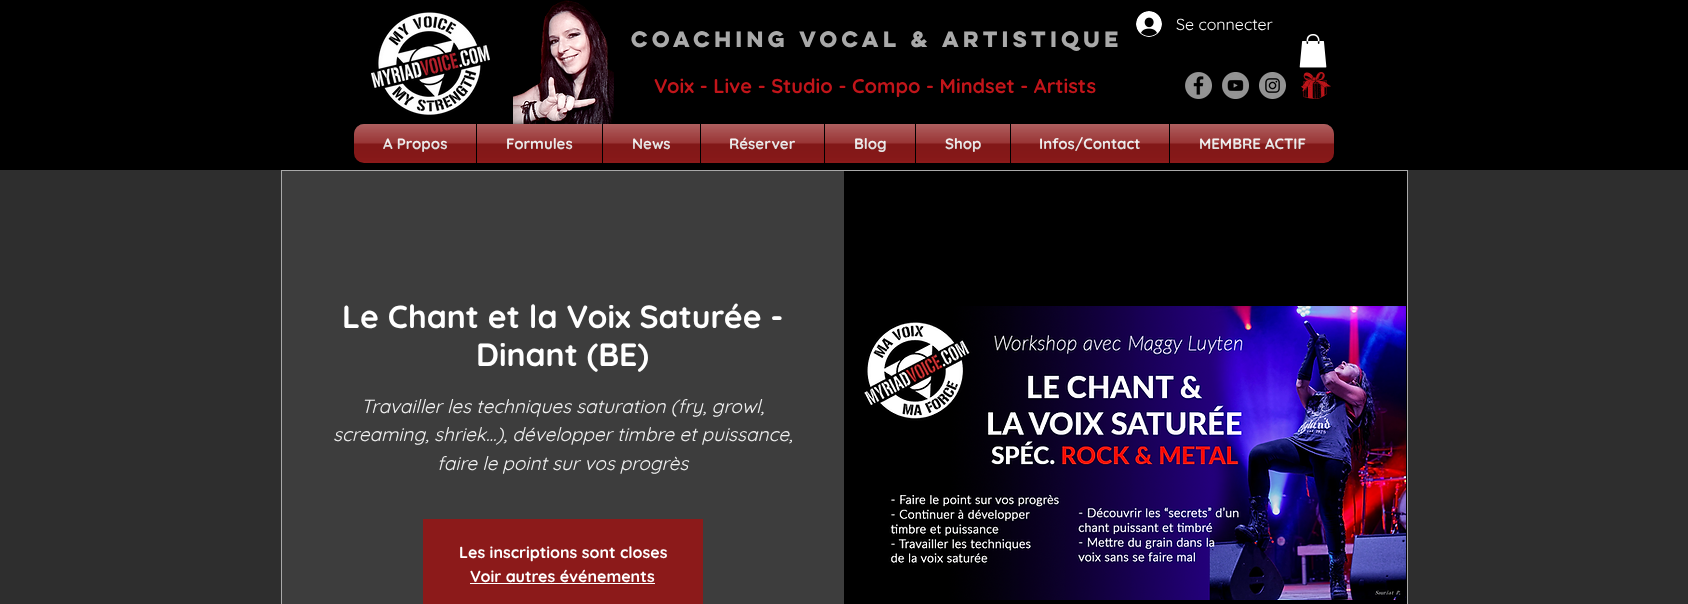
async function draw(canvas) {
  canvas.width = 1688
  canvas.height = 604
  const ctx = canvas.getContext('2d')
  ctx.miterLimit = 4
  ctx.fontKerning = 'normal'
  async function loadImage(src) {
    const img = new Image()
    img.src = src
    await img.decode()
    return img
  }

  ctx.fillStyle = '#000'
  ctx.fillRect(0, 0, 1688, 604)
  ctx.drawImage(await loadImage('image0.png'), 371, 12, 119, 103)
  ctx.drawImage(await loadImage('image1.png'), 513, 0, 101, 124)
  ctx.drawImage(await loadImage('image2.png'), 1136, 11, 26, 26)
  ctx.font = '16px Quicksand'
  ctx.fillStyle = '#fff'
  ctx.fillText('Se connecter', 1176, 30)
  ctx.font = 'bold 20px "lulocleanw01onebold"'
  ctx.fillStyle = '#a9a9a9'
  ctx.fillText('Coaching Vocal & Artistique', 631, 47)
  ctx.drawImage(await loadImage('image3.png'), 1299, 34, 28, 34)
  ctx.font = 'bold 20px Quicksand'
  ctx.fillStyle = '#c1151a'
  ctx.fillText('Voix - Live - Studio - Compo - Mindset - Artists', 654, 93)
  ctx.drawImage(await loadImage('image4.png'), 1185, 72, 27, 27)
  ctx.drawImage(await loadImage('image5.png'), 1222, 72, 27, 27)
  ctx.drawImage(await loadImage('image6.png'), 1259, 72, 27, 27)
  ctx.drawImage(await loadImage('image7.png'), 1301, 72, 30, 27)
  ctx.fillStyle = '#00000099'
  ctx.filter = 'blur(2px)'
  ctx.beginPath()
  ctx.roundRect(354, 125, 980, 38, 10)
  ctx.fill()
  ctx.filter = 'none'
  ctx.drawImage(await loadImage('image8.png'), 354, 124, 980, 31)
  ctx.fillStyle = '#8c1a1a'
  ctx.beginPath()
  ctx.roundRect(354, 124, 122, 39, [10, 0, 0, 10])
  ctx.fill()
  ctx.font = 'bold 15px Quicksand'
  ctx.fillStyle = '#f2f2f2'
  ctx.fillText('A Propos', 383, 149)
  ctx.drawImage(await loadImage('image9.png'), 354, 124, 122, 37)
  ctx.fillStyle = '#8c1a1a'
  ctx.fillRect(477, 124, 125, 39)
  ctx.fillStyle = '#000'
  ctx.fillRect(476, 124, 1, 19)
  ctx.fillStyle = '#f2f2f2'
  ctx.fillText('Formules', 506, 149)
  ctx.drawImage(await loadImage('image10.png'), 477, 124, 125, 37)
  ctx.fillStyle = '#8c1a1a'
  ctx.fillRect(603, 124, 97, 39)
  ctx.fillStyle = '#000'
  ctx.fillRect(602, 124, 1, 19)
  ctx.fillStyle = '#f2f2f2'
  ctx.fillText('News', 632, 149)
  ctx.drawImage(await loadImage('image11.png'), 603, 124, 97, 37)
  ctx.fillStyle = '#8c1a1a'
  ctx.fillRect(701, 124, 123, 39)
  ctx.fillStyle = '#000'
  ctx.fillRect(700, 124, 1, 19)
  ctx.fillStyle = '#f2f2f2'
  ctx.fillText('Réserver', 729, 149)
  ctx.drawImage(await loadImage('image12.png'), 701, 124, 123, 37)
  ctx.fillStyle = '#8c1a1a'
  ctx.fillRect(825, 124, 90, 39)
  ctx.fillStyle = '#000'
  ctx.fillRect(824, 124, 1, 19)
  ctx.fillStyle = '#f2f2f2'
  ctx.fillText('Blog', 854, 149)
  ctx.drawImage(await loadImage('image13.png'), 825, 124, 90, 37)
  ctx.fillStyle = '#8c1a1a'
  ctx.fillRect(916, 124, 94, 39)
  ctx.fillStyle = '#000'
  ctx.fillRect(915, 124, 1, 19)
  ctx.fillStyle = '#f2f2f2'
  ctx.fillText('Shop', 945, 149)
  ctx.drawImage(await loadImage('image14.png'), 916, 124, 94, 37)
  ctx.fillStyle = '#8c1a1a'
  ctx.fillRect(1011, 124, 158, 39)
  ctx.fillStyle = '#000'
  ctx.fillRect(1010, 124, 1, 19)
  ctx.fillStyle = '#f2f2f2'
  ctx.fillText('Infos/Contact', 1039, 149)
  ctx.drawImage(await loadImage('image15.png'), 1011, 124, 158, 37)
  ctx.fillStyle = '#8c1a1a'
  ctx.beginPath()
  ctx.roundRect(1169, 124, 165, 39, [0, 10, 10, 0])
  ctx.fill()
  ctx.fillStyle = '#000'
  ctx.fillRect(1169, 124, 1, 39)
  ctx.fillStyle = '#f2f2f2'
  ctx.fillText('MEMBRE ACTIF', 1199, 149)
  ctx.drawImage(await loadImage('image16.png'), 1170, 124, 164, 37)
  ctx.fillStyle = '#2e2e2e'
  ctx.fillRect(0, 170, 1688, 434)
  ctx.strokeStyle = '#a9a9a9'
  ctx.strokeRect(281.5, 170.5, 1126, 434)
  ctx.fillStyle = '#3d3d3d'
  ctx.fillRect(282, 171, 562, 433)
  ctx.font = 'bold 32px Quicksand'
  ctx.fillStyle = '#fff'
  ctx.fillText('Le Chant et la Voix Saturée -', 342, 328)
  ctx.fillText('Dinant (BE)', 476, 366)
  ctx.font = 'italic 19px Quicksand'
  ctx.fillStyle = '#f2f2f2'
  ctx.fillText('Travailler les techniques saturation (fry, growl,', 361, 413)
  ctx.fillText('screaming, shriek...), développer timbre et puissance,', 333, 441)
  ctx.fillText('faire le point sur vos progrès', 437, 470)
  ctx.fillStyle = '#8c1a1a'
  ctx.fillRect(423, 519, 280, 85)
  ctx.font = 'bold 16px Quicksand'
  ctx.fillStyle = '#fff'
  ctx.fillText('Les inscriptions sont closes', 459, 558)
  ctx.fillText('Voir autres événements', 470, 582)
  ctx.fillRect(470, 583, 185, 1)
  ctx.fillStyle = '#000'
  ctx.fillRect(844, 171, 563, 433)
  ctx.drawImage(await loadImage('image17.png'), 864, 306, 542, 294)
}

draw(document.querySelector('canvas'))
